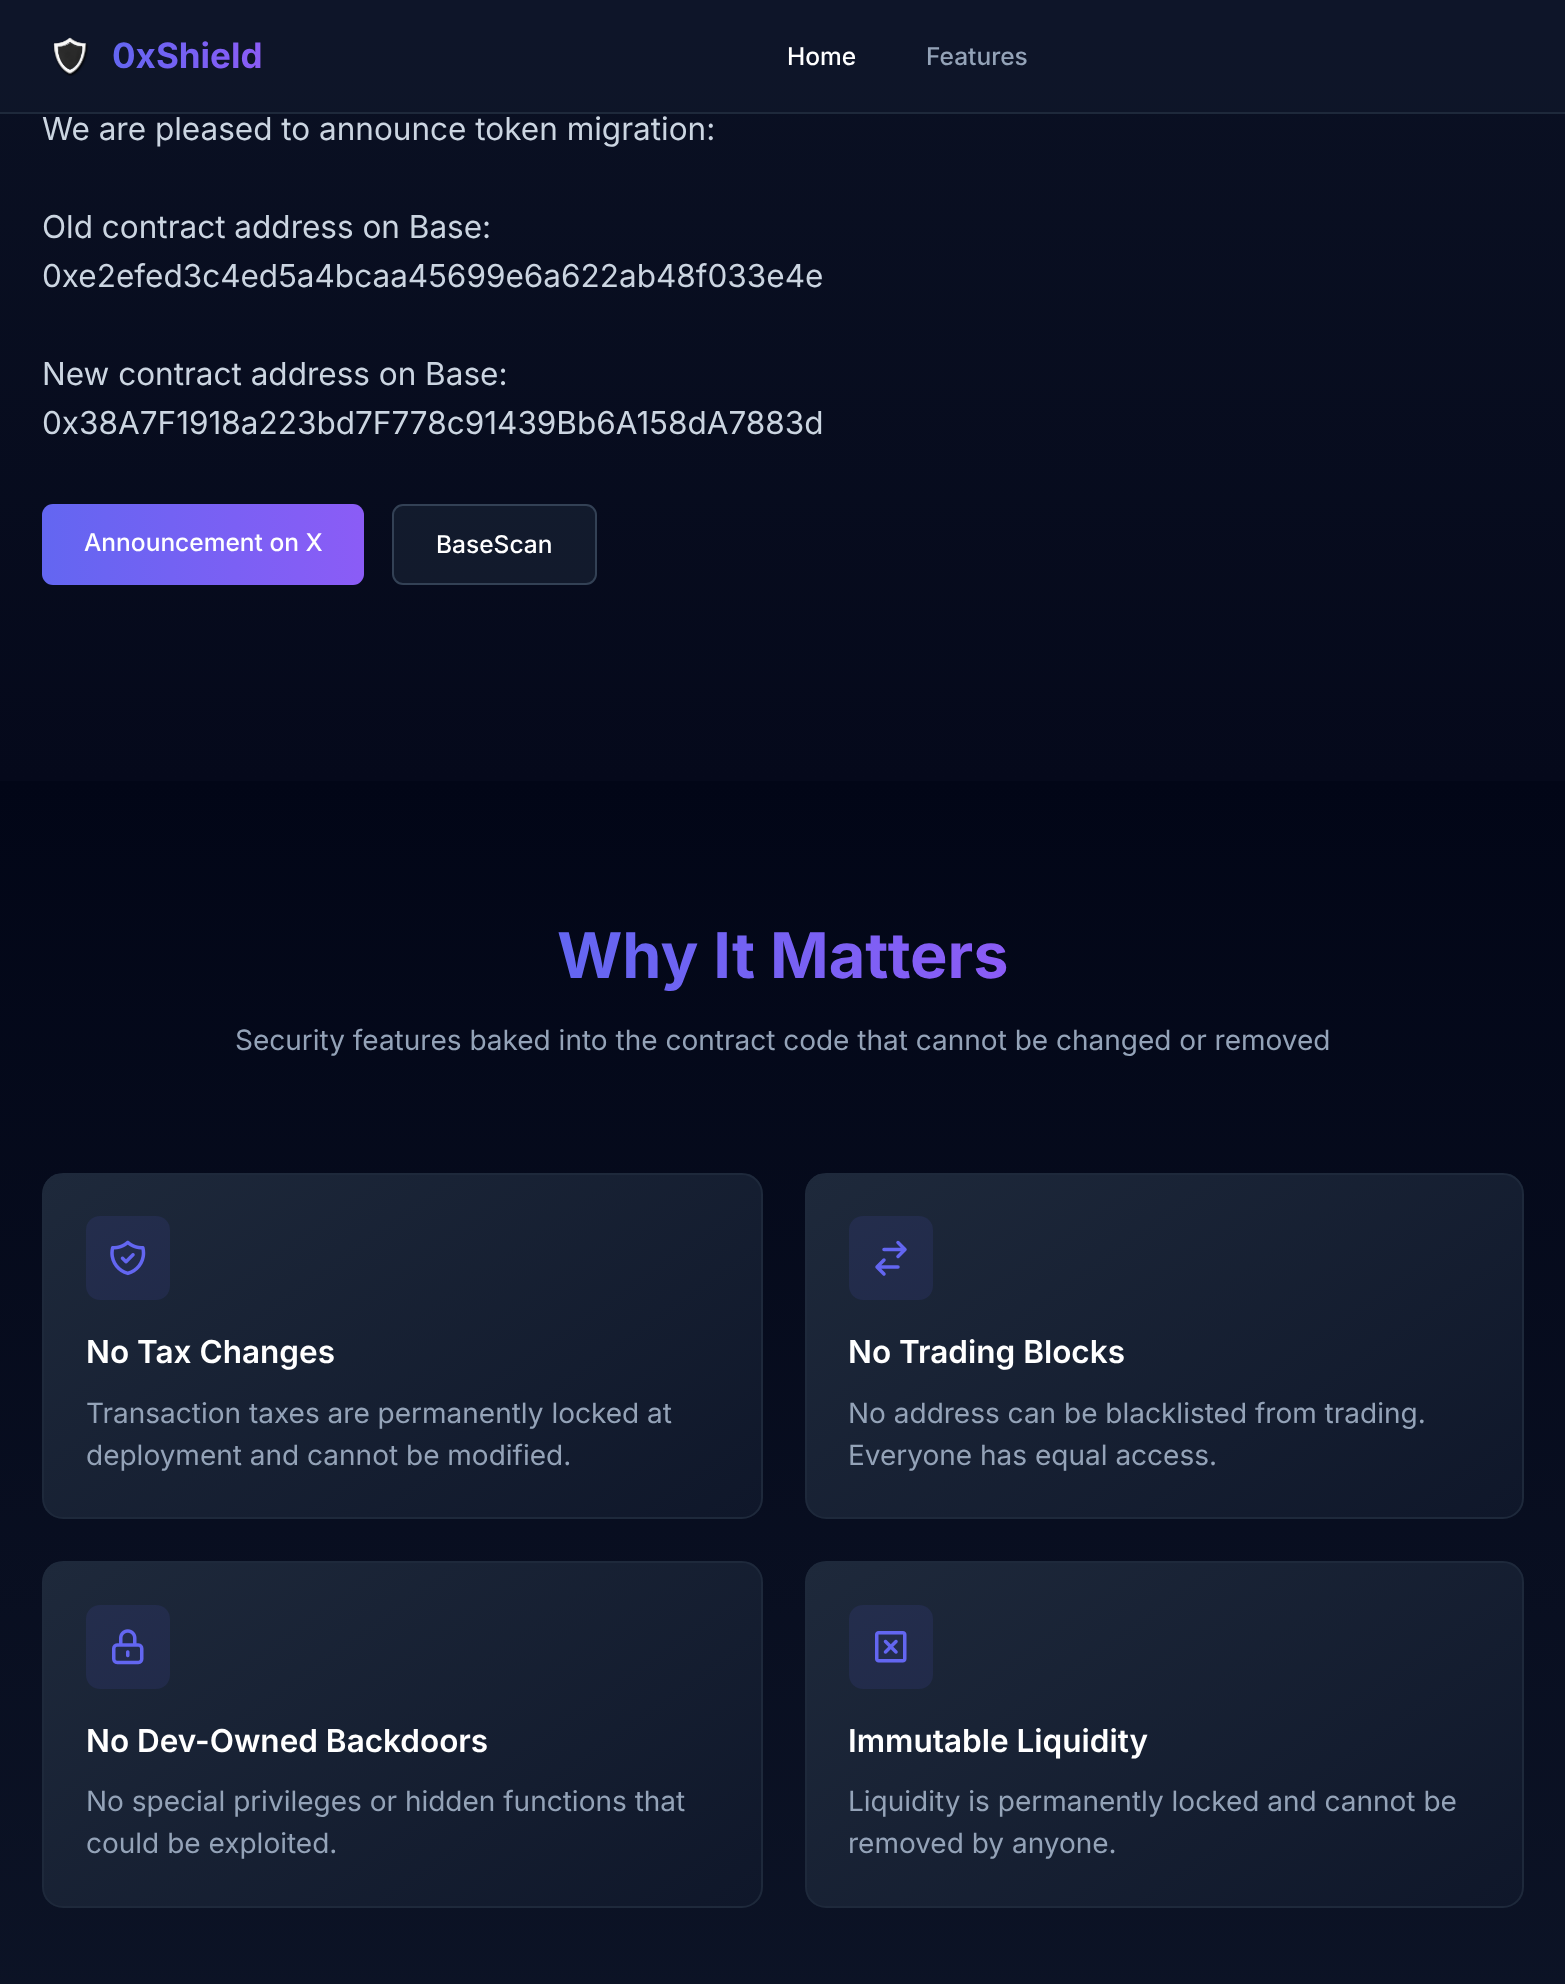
async function draw(canvas) {
  canvas.width = 1565
  canvas.height = 1984
  const ctx = canvas.getContext('2d')
  ctx.miterLimit = 4
  ctx.fontKerning = 'normal'
  async function loadImage(src) {
    const img = new Image()
    img.src = src
    await img.decode()
    return img
  }
  let gradient

  ctx.fillStyle = '#fff'
  ctx.fillRect(0, 0, 1565, 1984)
  gradient = ctx.createLinearGradient(783, -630, 783, 781)
  gradient.addColorStop(0, '#0f172a')
  gradient.addColorStop(1, '#05091b')
  ctx.fillStyle = gradient
  ctx.fillRect(0, 0, 1565, 781)
  ctx.fillStyle = '#0f172acc'
  ctx.fillRect(0, 0, 1565, 112)
  ctx.fillStyle = '#1e293b'
  ctx.fillRect(0, 112, 1565, 2)
  ctx.drawImage(await loadImage('image0.png'), 53, 37, 35, 39)
  ctx.font = 'bold 35px Inter'
  gradient = ctx.createLinearGradient(112, 56, 263, 56)
  gradient.addColorStop(0, '#6366f1')
  gradient.addColorStop(1, '#8b5cf6')
  ctx.fillStyle = gradient
  ctx.fillText('0xShield', 112, 68)
  ctx.font = '500 24.5px Inter'
  ctx.fillStyle = '#fff'
  ctx.fillText('Home', 787, 65)
  ctx.fillStyle = '#94a3b8'
  ctx.fillText('Features', 926, 65)
  ctx.font = '31.5px Inter'
  ctx.fillStyle = '#cbd5e1'
  ctx.fillText('We are pleased to announce token migration:', 42, 140)
  ctx.fillText('Old contract address on Base:', 42, 238)
  ctx.fillText('0xe2efed3c4ed5a4bcaa45699e6a622ab48f033e4e', 42, 287)
  ctx.fillText('New contract address on Base:', 42, 385)
  ctx.fillText('0x38A7F1918a223bd7F778c91439Bb6A158dA7883d', 42, 434)
  gradient = ctx.createLinearGradient(42, 544, 364, 544)
  gradient.addColorStop(0, '#6366f1')
  gradient.addColorStop(1, '#8b5cf6')
  ctx.fillStyle = gradient
  ctx.beginPath()
  ctx.roundRect(42, 504, 322, 81, 11)
  ctx.fill()
  ctx.font = '500 24.5px Inter'
  ctx.fillStyle = '#fff'
  ctx.fillText('Announcement on X', 84, 551)
  ctx.fillStyle = '#1e293b80'
  ctx.beginPath()
  ctx.roundRect(393, 505, 203, 79, 10)
  ctx.fill()
  ctx.strokeStyle = '#334155'
  ctx.lineWidth = 2
  ctx.stroke()
  ctx.fillStyle = '#fff'
  ctx.fillText('BaseScan', 436, 553)
  gradient = ctx.createLinearGradient(783, 780, 783, 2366)
  gradient.addColorStop(0, '#020617')
  gradient.addColorStop(1, '#0f172a')
  ctx.fillStyle = gradient
  ctx.fillRect(0, 781, 1565, 1203)
  ctx.font = 'bold 63px Inter'
  gradient = ctx.createLinearGradient(557, 956, 1009, 956)
  gradient.addColorStop(0, '#6366f1')
  gradient.addColorStop(1, '#8b5cf6')
  ctx.fillStyle = gradient
  ctx.fillText('Why It Matters', 557, 978)
  ctx.font = '28px Inter'
  ctx.fillStyle = '#94a3b8'
  ctx.fillText('Security features baked into the contract code that cannot be changed or removed', 235, 1050)
  ctx.save()
  ctx.beginPath()
  ctx.roundRect(42, 1173, 721, 346, 21)
  ctx.clip()
  gradient = ctx.createLinearGradient(204, 1062, 601, 1629)
  gradient.addColorStop(0, '#1e293b')
  gradient.addColorStop(1, '#0f172a')
  ctx.fillStyle = gradient
  ctx.fillRect(44, 1174, 717, 343)
  ctx.restore()
  ctx.beginPath()
  ctx.roundRect(43, 1174, 719, 344, 20)
  ctx.strokeStyle = '#1e293b'
  ctx.stroke()
  ctx.fillStyle = '#6366f11a'
  ctx.beginPath()
  ctx.roundRect(86, 1216, 84, 84, 14)
  ctx.fill()
  ctx.drawImage(await loadImage('image1.png'), 110, 1240, 36, 36)
  ctx.font = '600 31.5px Inter'
  ctx.fillStyle = '#fff'
  ctx.fillText('No Tax Changes', 86, 1363)
  ctx.font = '28px Inter'
  ctx.fillStyle = '#94a3b8'
  ctx.fillText('Transaction taxes are permanently locked at', 86, 1423)
  ctx.fillText('deployment and cannot be modified.', 86, 1465)
  ctx.save()
  ctx.beginPath()
  ctx.roundRect(805, 1173, 719, 346, 21)
  ctx.clip()
  gradient = ctx.createLinearGradient(966, 1063, 1363, 1629)
  gradient.addColorStop(0, '#1e293b')
  gradient.addColorStop(1, '#0f172a')
  ctx.fillStyle = gradient
  ctx.fillRect(807, 1174, 716, 343)
  ctx.restore()
  ctx.beginPath()
  ctx.roundRect(806, 1174, 717, 344, 20)
  ctx.stroke()
  ctx.fillStyle = '#6366f11a'
  ctx.beginPath()
  ctx.roundRect(849, 1216, 84, 84, 14)
  ctx.fill()
  ctx.beginPath()
  ctx.moveTo(884, 1249.5)
  ctx.lineTo(905, 1249.5)
  ctx.moveTo(905, 1249.5)
  ctx.lineTo(898, 1242.5)
  ctx.moveTo(905, 1249.5)
  ctx.lineTo(898, 1256.5)
  ctx.moveTo(898, 1267)
  ctx.lineTo(877, 1267)
  ctx.moveTo(877, 1267)
  ctx.lineTo(884, 1274)
  ctx.moveTo(877, 1267)
  ctx.lineTo(884, 1260)
  ctx.strokeStyle = '#6366f1'
  ctx.lineWidth = 3.5
  ctx.lineCap = 'round'
  ctx.lineJoin = 'round'
  ctx.stroke()
  ctx.font = '600 31.5px Inter'
  ctx.fillStyle = '#fff'
  ctx.fillText('No Trading Blocks', 848, 1363)
  ctx.font = '28px Inter'
  ctx.fillStyle = '#94a3b8'
  ctx.fillText('No address can be blacklisted from trading.', 848, 1423)
  ctx.fillText('Everyone has equal access.', 848, 1465)
  ctx.save()
  ctx.beginPath()
  ctx.roundRect(42, 1561, 721, 347, 21)
  ctx.clip()
  gradient = ctx.createLinearGradient(204, 1451, 601, 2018)
  gradient.addColorStop(0, '#1e293b')
  gradient.addColorStop(1, '#0f172a')
  ctx.fillStyle = gradient
  ctx.fillRect(44, 1563, 717, 343)
  ctx.restore()
  ctx.beginPath()
  ctx.roundRect(43, 1562, 719, 345, 20)
  ctx.strokeStyle = '#1e293b'
  ctx.lineWidth = 2
  ctx.lineJoin = 'miter'
  ctx.stroke()
  ctx.fillStyle = '#6366f11a'
  ctx.beginPath()
  ctx.roundRect(86, 1605, 84, 84, 14)
  ctx.fill()
  ctx.drawImage(await loadImage('image2.png'), 112, 1629, 32, 36)
  ctx.font = '600 31.5px Inter'
  ctx.fillStyle = '#fff'
  ctx.fillText('No Dev-Owned Backdoors', 86, 1752)
  ctx.font = '28px Inter'
  ctx.fillStyle = '#94a3b8'
  ctx.fillText('No special privileges or hidden functions that', 86, 1811)
  ctx.fillText('could be exploited.', 86, 1853)
  ctx.save()
  ctx.beginPath()
  ctx.roundRect(805, 1561, 719, 347, 21)
  ctx.clip()
  gradient = ctx.createLinearGradient(966, 1451, 1363, 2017)
  gradient.addColorStop(0, '#1e293b')
  gradient.addColorStop(1, '#0f172a')
  ctx.fillStyle = gradient
  ctx.fillRect(807, 1563, 716, 343)
  ctx.restore()
  ctx.beginPath()
  ctx.roundRect(806, 1562, 717, 345, 20)
  ctx.stroke()
  ctx.fillStyle = '#6366f11a'
  ctx.beginPath()
  ctx.roundRect(849, 1605, 84, 84, 14)
  ctx.fill()
  ctx.drawImage(await loadImage('image3.png'), 875, 1631, 32, 32)
  ctx.font = '600 31.5px Inter'
  ctx.fillStyle = '#fff'
  ctx.fillText('Immutable Liquidity', 848, 1752)
  ctx.font = '28px Inter'
  ctx.fillStyle = '#94a3b8'
  ctx.fillText('Liquidity is permanently locked and cannot be', 848, 1811)
  ctx.fillText('removed by anyone.', 848, 1853)
}

draw(document.querySelector('canvas'))
